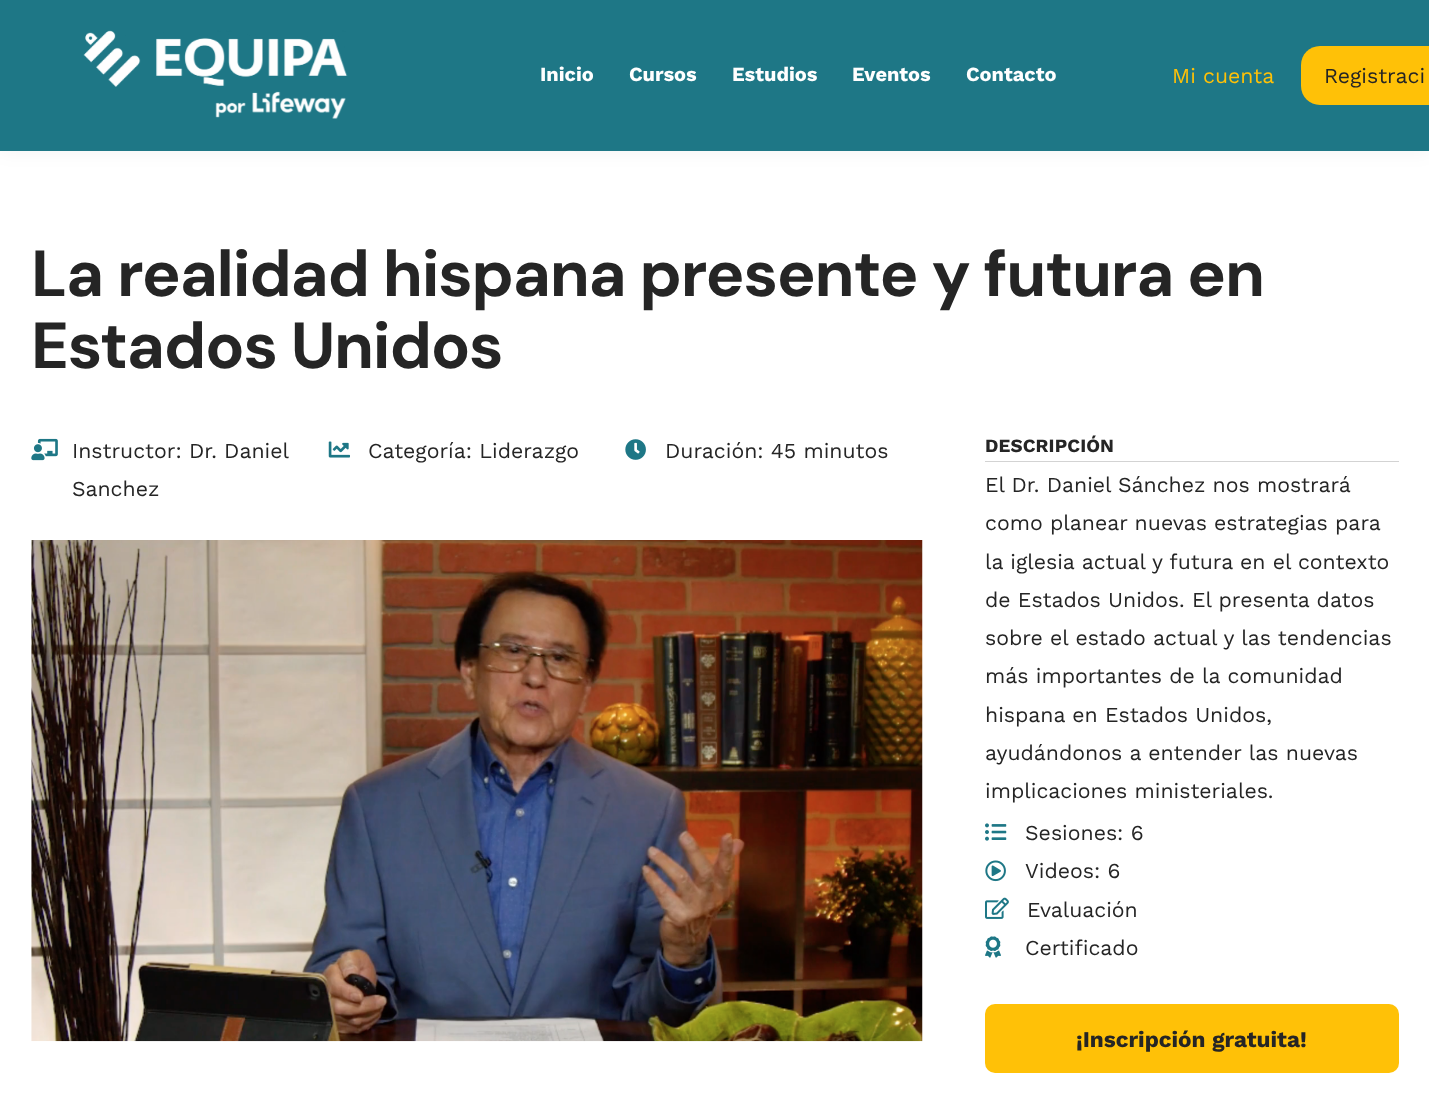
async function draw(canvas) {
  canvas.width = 1429
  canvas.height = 1094
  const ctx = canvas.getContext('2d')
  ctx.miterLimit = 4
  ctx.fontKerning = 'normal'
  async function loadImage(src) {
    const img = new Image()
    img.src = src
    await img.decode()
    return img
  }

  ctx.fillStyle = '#fff'
  ctx.fillRect(0, 0, 1429, 1094)
  ctx.fillStyle = '#0000000d'
  ctx.filter = 'blur(9.5px)'
  ctx.beginPath()
  ctx.rect(0, 0, 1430, 151)
  ctx.fill()
  ctx.filter = 'none'
  ctx.fillStyle = '#1e7786'
  ctx.fillRect(0, 0, 1429, 151)
  ctx.drawImage(await loadImage('image0.png'), 83, 30, 265, 89)
  ctx.font = 'bold 20px Work Sans'
  ctx.fillStyle = '#fff'
  ctx.fillText('Inicio', 540, 81)
  ctx.fillText('Cursos', 629, 81)
  ctx.fillText('Estudios', 732, 81)
  ctx.fillText('Eventos', 852, 81)
  ctx.fillText('Contacto', 966, 81)
  ctx.font = '21.25px Work Sans'
  ctx.fillStyle = '#ffc107'
  ctx.fillText('Mi cuenta', 1172, 83)
  ctx.beginPath()
  ctx.moveTo(1320, 46)
  ctx.lineTo(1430, 46)
  ctx.lineTo(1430, 105)
  ctx.lineTo(1320, 105)
  ctx.bezierCurveTo(1309.5, 105, 1301, 96.5, 1301, 86)
  ctx.lineTo(1301, 65)
  ctx.bezierCurveTo(1301, 54.5, 1309.5, 46, 1320, 46)
  ctx.closePath()
  ctx.fill()
  ctx.fillStyle = '#252525'
  ctx.fillText('Registraci', 1324, 83)
  ctx.letterSpacing = '-1.25px'
  ctx.font = 'bold 65px DM Sans'
  ctx.fillText('La realidad hispana presente y futura en', 31, 296)
  ctx.fillText('Estados Unidos', 31, 368)
  ctx.drawImage(await loadImage('image1.png'), 31, 438, 27, 23)
  ctx.letterSpacing = '0px'
  ctx.font = '21.25px Work Sans'
  ctx.fillText('Instructor: Dr. Daniel', 72, 458)
  ctx.fillText('Sanchez', 72, 496)
  ctx.drawImage(await loadImage('image2.png'), 328, 441, 22, 17)
  ctx.fillText('Categoría: Liderazgo', 368, 458)
  ctx.drawImage(await loadImage('image3.png'), 625, 439, 21, 21)
  ctx.fillText('Duración: 45 minutos', 665, 458)
  ctx.drawImage(await loadImage('image4.png'), 31, 540, 892, 502)
  ctx.fillStyle = '#d3d3d3'
  ctx.fillRect(985, 461, 414, 1)
  ctx.letterSpacing = '0.1px'
  ctx.font = 'bold 18.75px Work Sans'
  ctx.fillStyle = '#252525'
  ctx.fillText('DESCRIPCIÓN', 985, 452)
  ctx.letterSpacing = '0px'
  ctx.font = '21.25px Work Sans'
  ctx.fillText('El Dr. Daniel Sánchez nos mostrará', 985, 492)
  ctx.fillText('como planear nuevas estrategias para', 985, 530)
  ctx.fillText('la iglesia actual y futura en el contexto', 985, 569)
  ctx.fillText('de Estados Unidos. El presenta datos', 985, 607)
  ctx.fillText('sobre el estado actual y las tendencias', 985, 645)
  ctx.fillText('más importantes de la comunidad', 985, 683)
  ctx.fillText('hispana en Estados Unidos,', 985, 722)
  ctx.fillText('ayudándonos a entender las nuevas', 985, 760)
  ctx.fillText('implicaciones ministeriales.', 985, 798)
  ctx.drawImage(await loadImage('image5.png'), 985, 823, 22, 18)
  ctx.fillText('Sesiones: 6', 1025, 840)
  ctx.drawImage(await loadImage('image6.png'), 985, 860, 21, 22)
  ctx.fillText('Videos: 6', 1025, 878)
  ctx.drawImage(await loadImage('image7.png'), 985, 897, 24, 22)
  ctx.fillText('Evaluación', 1027, 917)
  ctx.drawImage(await loadImage('image8.png'), 985, 936, 16, 22)
  ctx.fillText('Certificado', 1025, 955)
  ctx.fillStyle = '#ffc107'
  ctx.beginPath()
  ctx.roundRect(985, 1004, 414, 69, 10)
  ctx.fill()
  ctx.font = 'bold 22.5px Work Sans'
  ctx.fillStyle = '#252525'
  ctx.fillText('¡Inscripción gratuita!', 1076, 1047)
}

draw(document.querySelector('canvas'))
